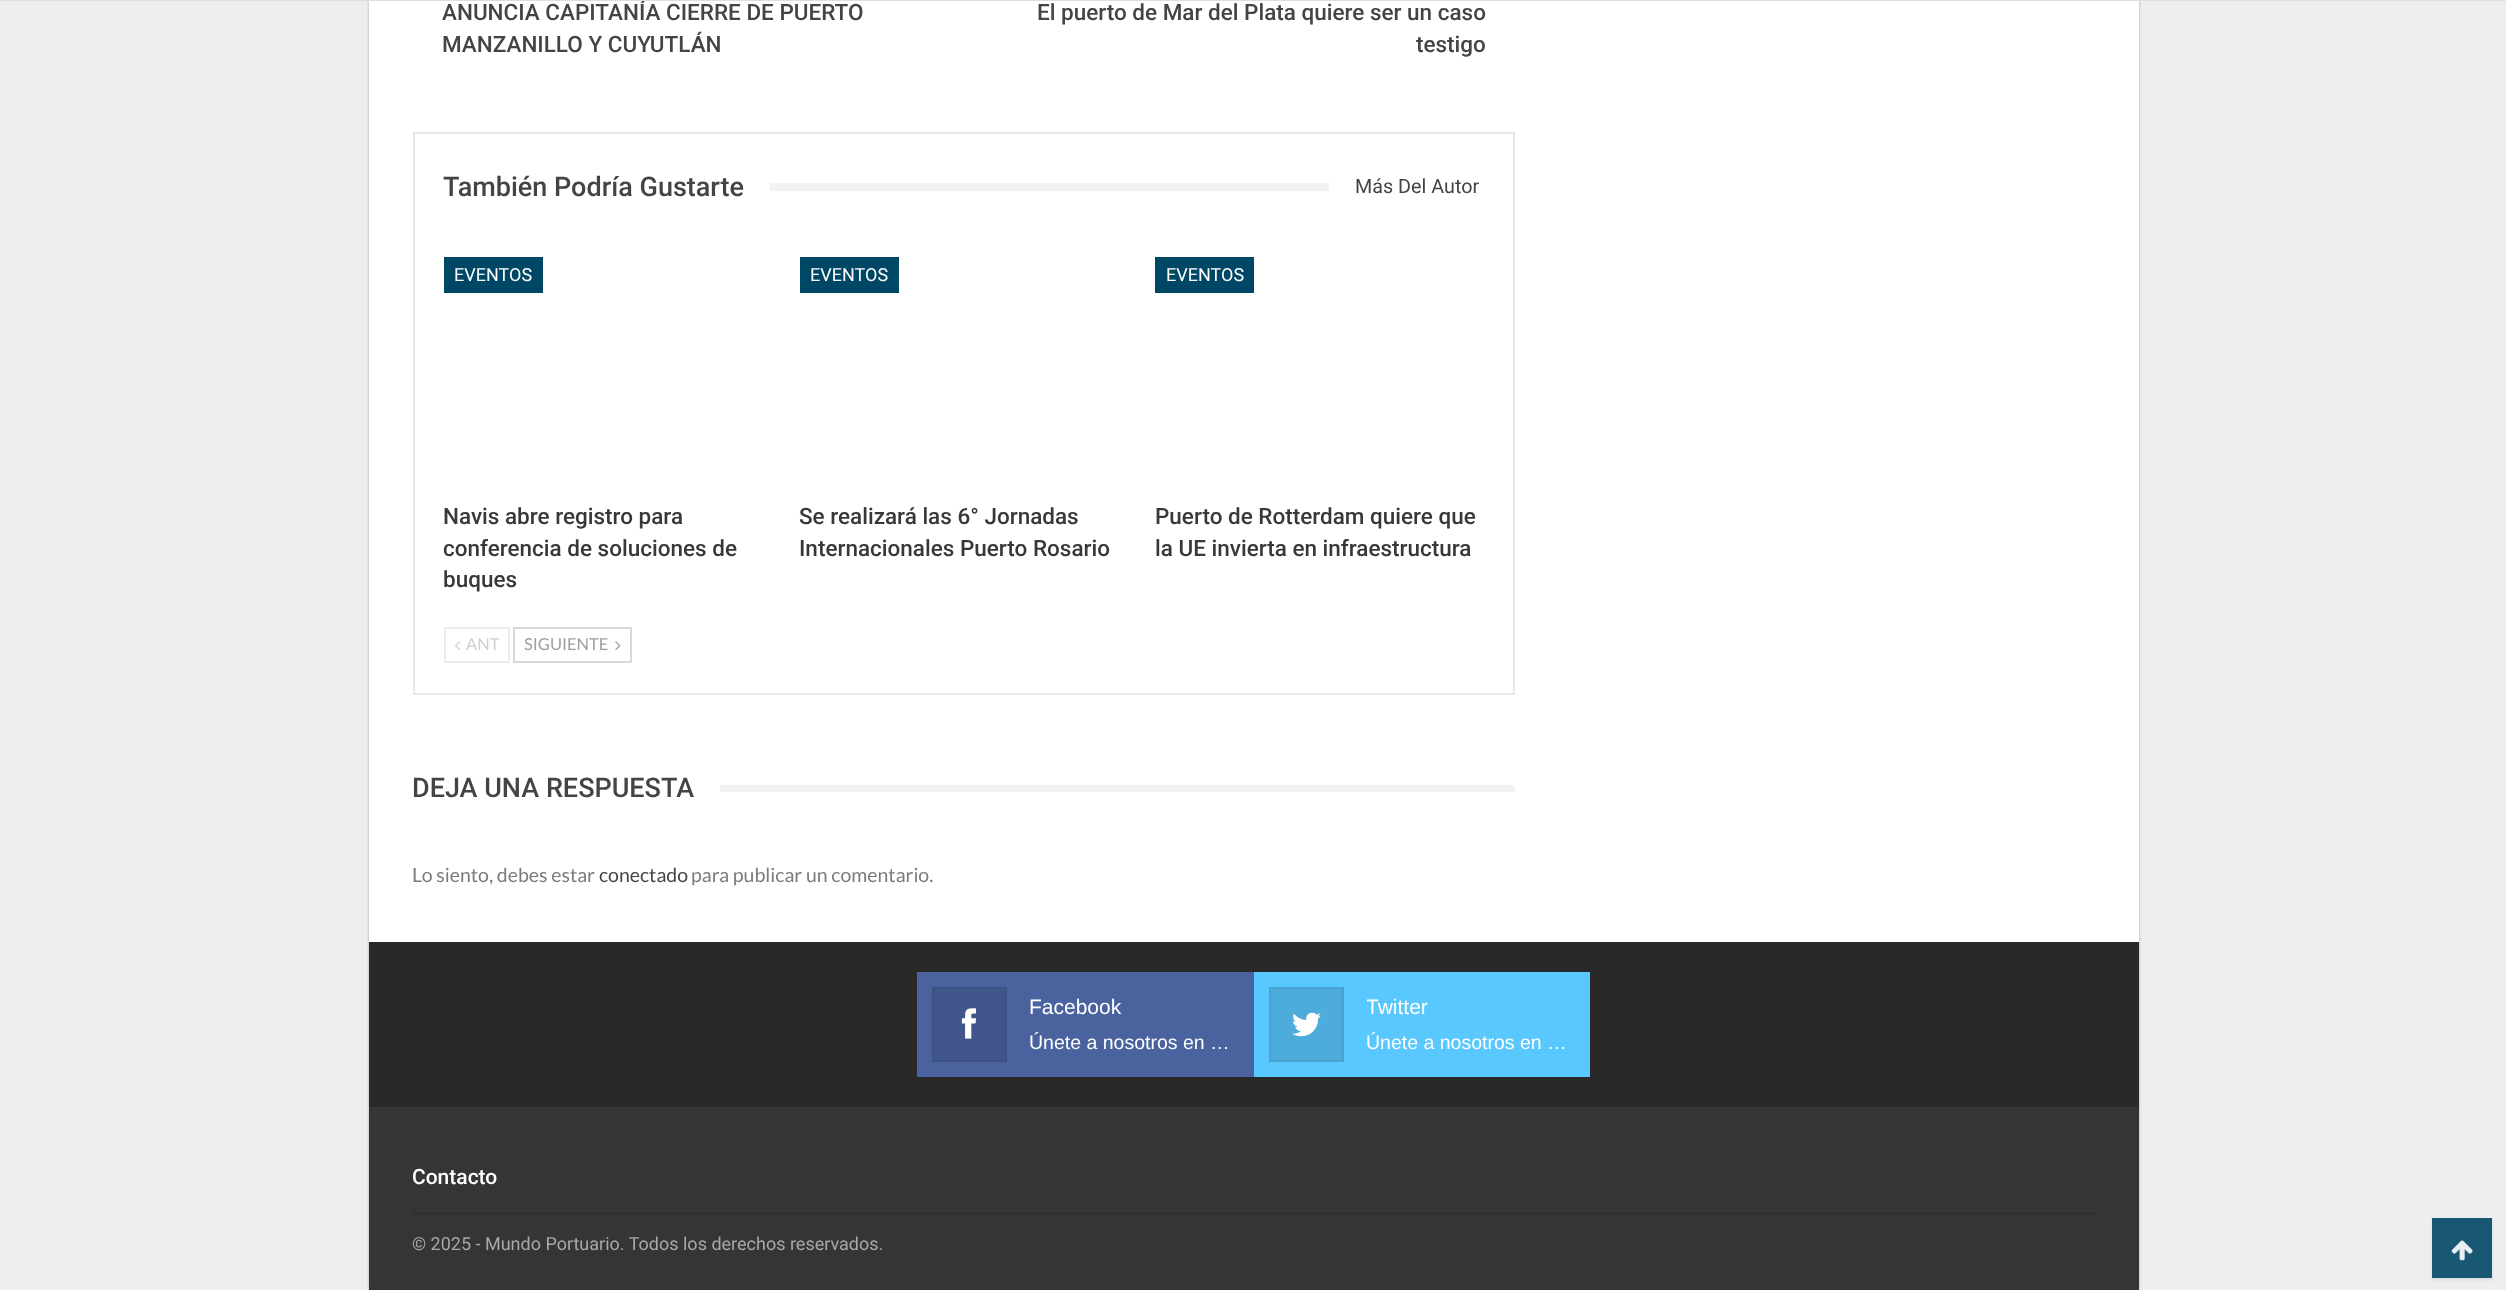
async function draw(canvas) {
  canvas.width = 2506
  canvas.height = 1290
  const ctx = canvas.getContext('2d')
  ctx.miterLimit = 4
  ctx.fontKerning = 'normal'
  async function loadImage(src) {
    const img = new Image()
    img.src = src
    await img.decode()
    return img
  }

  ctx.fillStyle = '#eee'
  ctx.fillRect(0, 0, 2506, 1290)
  ctx.fillStyle = '#00000045'
  ctx.filter = 'blur(1.5px)'
  ctx.beginPath()
  ctx.rect(369, -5, 1770, 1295)
  ctx.fill()
  ctx.filter = 'none'
  ctx.fillStyle = '#fff'
  ctx.fillRect(369, 1, 1770, 941)
  ctx.font = '500 22.5px Roboto'
  ctx.fillStyle = '#444'
  ctx.fillText('ANUNCIA CAPITANÍA CIERRE DE PUERTO', 442, 20)
  ctx.fillStyle = '#dedede'
  ctx.fillRect(0, 0, 2506, 1)
  ctx.fillStyle = '#444'
  ctx.fillText('MANZANILLO Y CUYUTLÁN', 442, 52)
  ctx.fillText('El puerto de Mar del Plata quiere ser un caso', 1037, 20)
  ctx.fillText('testigo', 1416, 52)
  ctx.strokeStyle = '#e8e8e8'
  ctx.lineWidth = 2
  ctx.strokeRect(414, 133, 1100, 561)
  ctx.font = '500 27px Roboto'
  ctx.fillText('También Podría Gustarte', 443, 196)
  ctx.fillStyle = '#f2f2f2'
  ctx.fillRect(770, 183, 559, 8)
  ctx.font = '19.75px Roboto'
  ctx.fillStyle = '#444'
  ctx.fillText('Más Del Autor', 1355, 193)
  ctx.fillStyle = '#004765'
  ctx.fillRect(444, 257, 99, 36)
  ctx.font = '18px Roboto'
  ctx.fillStyle = '#fff'
  ctx.fillText('EVENTOS', 454, 281)
  ctx.font = '500 22.5px Roboto'
  ctx.fillStyle = '#383838'
  ctx.fillText('Navis abre registro para', 443, 524)
  ctx.fillText('conferencia de soluciones de', 443, 556)
  ctx.fillText('buques', 443, 587)
  ctx.fillStyle = '#004765'
  ctx.fillRect(800, 257, 99, 36)
  ctx.font = '18px Roboto'
  ctx.fillStyle = '#fff'
  ctx.fillText('EVENTOS', 810, 281)
  ctx.font = '500 22.5px Roboto'
  ctx.fillStyle = '#383838'
  ctx.fillText('Se realizará las 6° Jornadas', 799, 524)
  ctx.fillText('Internacionales Puerto Rosario', 799, 556)
  ctx.fillStyle = '#004765'
  ctx.fillRect(1155, 257, 99, 36)
  ctx.font = '18px Roboto'
  ctx.fillStyle = '#fff'
  ctx.fillText('EVENTOS', 1166, 281)
  ctx.font = '500 22.5px Roboto'
  ctx.fillStyle = '#383838'
  ctx.fillText('Puerto de Rotterdam quiere que', 1155, 524)
  ctx.fillText('la UE invierta en infraestructura', 1155, 556)
  ctx.strokeStyle = '#ececec'
  ctx.strokeRect(445, 628, 64, 34)
  ctx.drawImage(await loadImage('image0.png'), 455, 641, 6, 10)
  ctx.font = '16.5px Lato'
  ctx.fillStyle = '#cfcfcf'
  ctx.fillText('ANT', 466, 650)
  ctx.strokeStyle = '#d8d8d8'
  ctx.strokeRect(514, 628, 117, 34)
  ctx.fillStyle = '#9e9e9e'
  ctx.fillText('SIGUIENTE', 524, 650)
  ctx.drawImage(await loadImage('image1.png'), 615, 641, 6, 10)
  ctx.font = '500 27px Roboto'
  ctx.fillStyle = '#444'
  ctx.fillText('DEJA UNA RESPUESTA', 412, 797)
  ctx.fillStyle = '#f2f2f2'
  ctx.fillRect(720, 785, 795, 7)
  ctx.font = '19.5px Lato'
  ctx.fillStyle = '#7b7b7b'
  ctx.fillText('Lo siento, debes estar', 412, 882)
  ctx.fillStyle = '#444'
  ctx.fillText('conectado', 599, 882)
  ctx.fillStyle = '#7b7b7b'
  ctx.fillText('para publicar un comentario.', 691, 882)
  ctx.fillStyle = '#292929'
  ctx.fillRect(369, 942, 1770, 165)
  ctx.fillStyle = '#4a639f'
  ctx.fillRect(917, 972, 337, 105)
  ctx.fillStyle = '#405589'
  ctx.beginPath()
  ctx.rect(933, 988, 73, 73)
  ctx.fill()
  ctx.strokeStyle = '#3d5182'
  ctx.stroke()
  ctx.drawImage(await loadImage('image2.png'), 961, 1008, 16, 31)
  ctx.font = '21px Liberation Sans'
  ctx.fillStyle = '#fff'
  ctx.fillText('Facebook', 1029, 1014)
  ctx.font = '19.5px Liberation Sans'
  ctx.fillText('Únete a nosotros en …', 1029, 1049)
  ctx.fillStyle = '#59c8ff'
  ctx.fillRect(1254, 972, 336, 105)
  ctx.fillStyle = '#4dacdb'
  ctx.beginPath()
  ctx.rect(1270, 988, 73, 73)
  ctx.fill()
  ctx.strokeStyle = '#49a3d0'
  ctx.stroke()
  ctx.drawImage(await loadImage('image3.png'), 1292, 1012, 29, 25)
  ctx.save()
  ctx.beginPath()
  ctx.rect(1367, 990, 208, 36)
  ctx.clip()
  ctx.font = '21px Liberation Sans'
  ctx.fillStyle = '#fff'
  ctx.fillText('Twitter', 1366, 1014)
  ctx.restore()
  ctx.fillStyle = '#fff'
  ctx.fillText('Únete a nosotros en …', 1366, 1049)
  ctx.fillStyle = '#353535'
  ctx.fillRect(369, 1107, 1770, 183)
  ctx.fillStyle = '#2f2f2f'
  ctx.fillRect(413, 1212, 1683, 3)
  ctx.font = '500 21px Roboto'
  ctx.fillStyle = '#fff'
  ctx.fillText('Contacto', 412, 1184)
  ctx.font = '18px Roboto'
  ctx.fillStyle = '#a8a8a8'
  ctx.fillText('© 2025 - Mundo Portuario. Todos los derechos reservados.', 412, 1250)
  ctx.fillStyle = '#18181817'
  ctx.filter = 'blur(1.5px)'
  ctx.beginPath()
  ctx.rect(2432, 1220, 60, 60)
  ctx.fill()
  ctx.filter = 'none'
  ctx.fillStyle = '#185873'
  ctx.fillRect(2432, 1218, 60, 60)
  ctx.drawImage(await loadImage('image4.png'), 2451, 1240, 22, 21)
}

draw(document.querySelector('canvas'))
